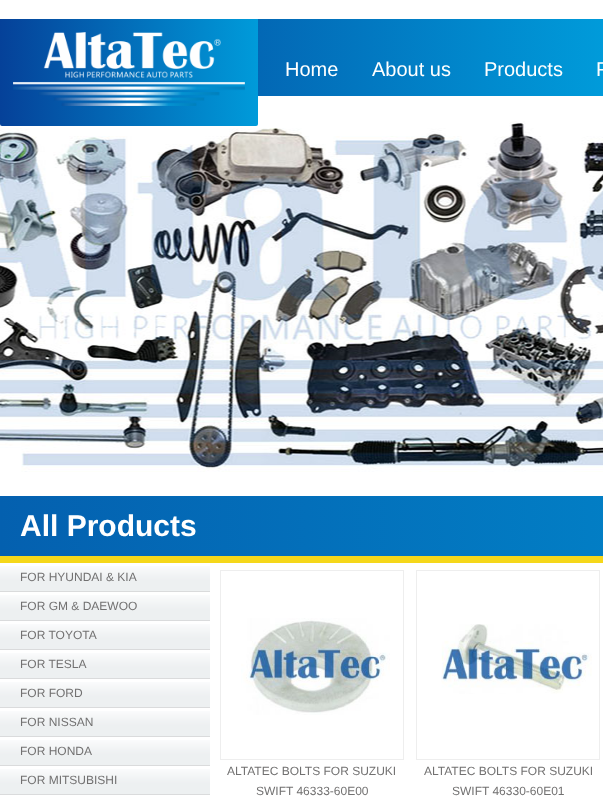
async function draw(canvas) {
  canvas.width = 603
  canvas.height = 797
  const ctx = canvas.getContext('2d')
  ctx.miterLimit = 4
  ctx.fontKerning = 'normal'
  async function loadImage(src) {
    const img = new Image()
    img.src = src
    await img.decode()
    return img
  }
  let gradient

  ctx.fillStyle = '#fff'
  ctx.fillRect(0, 0, 603, 797)
  gradient = ctx.createLinearGradient(0, 58, 603, 57)
  gradient.addColorStop(0, '#054199')
  gradient.addColorStop(1, '#009bda')
  ctx.fillStyle = gradient
  ctx.fillRect(258, 19, 345, 77)
  ctx.drawImage(await loadImage('image1.png'), 0, 121, 603, 351)
  gradient = ctx.createLinearGradient(0, 73, 258, 72)
  gradient.addColorStop(0, '#054199')
  gradient.addColorStop(1, '#009bda')
  ctx.fillStyle = gradient
  ctx.beginPath()
  ctx.roundRect(0, 19, 258, 107, [0, 0, 2, 2])
  ctx.fill()
  ctx.drawImage(await loadImage('image0.png'), 13, 32, 232, 74)
  ctx.font = '20px Liberation Sans'
  ctx.fillStyle = '#fff'
  ctx.fillText('Home', 285, 76)
  ctx.fillText('About us', 372, 76)
  ctx.fillText('Products', 484, 76)
  ctx.fillText('F', 596, 76)
  gradient = ctx.createLinearGradient(0, 526, 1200, 526)
  gradient.addColorStop(0, '#0460af')
  gradient.addColorStop(1, '#009bda')
  ctx.fillStyle = gradient
  ctx.fillRect(0, 496, 603, 60)
  ctx.fillStyle = '#f5d71a'
  ctx.fillRect(0, 556, 603, 7)
  ctx.font = 'bold 30px Liberation Sans'
  ctx.fillStyle = '#fff'
  ctx.fillText('All Products', 20, 536)
  ctx.drawImage(await loadImage('image2.png'), 0, 566, 210, 25)
  ctx.fillStyle = '#dadbdc'
  ctx.fillRect(0, 591, 210, 1)
  ctx.font = '12px Liberation Sans'
  ctx.fillStyle = '#727171'
  ctx.fillText('FOR HYUNDAI & KIA', 20, 581)
  ctx.drawImage(await loadImage('image2.png'), 0, 595, 210, 25)
  ctx.fillStyle = '#dadbdc'
  ctx.fillRect(0, 620, 210, 1)
  ctx.fillStyle = '#727171'
  ctx.fillText('FOR GM & DAEWOO', 20, 610)
  ctx.drawImage(await loadImage('image2.png'), 0, 624, 210, 25)
  ctx.fillStyle = '#dadbdc'
  ctx.fillRect(0, 649, 210, 1)
  ctx.fillStyle = '#727171'
  ctx.fillText('FOR TOYOTA', 20, 639)
  ctx.drawImage(await loadImage('image2.png'), 0, 653, 210, 25)
  ctx.fillStyle = '#dadbdc'
  ctx.fillRect(0, 678, 210, 1)
  ctx.fillStyle = '#727171'
  ctx.fillText('FOR TESLA', 20, 668)
  ctx.drawImage(await loadImage('image2.png'), 0, 682, 210, 25)
  ctx.fillStyle = '#dadbdc'
  ctx.fillRect(0, 707, 210, 1)
  ctx.fillStyle = '#727171'
  ctx.fillText('FOR FORD', 20, 697)
  ctx.drawImage(await loadImage('image2.png'), 0, 711, 210, 25)
  ctx.fillStyle = '#dadbdc'
  ctx.fillRect(0, 736, 210, 1)
  ctx.fillStyle = '#727171'
  ctx.fillText('FOR NISSAN', 20, 726)
  ctx.drawImage(await loadImage('image2.png'), 0, 740, 210, 25)
  ctx.fillStyle = '#dadbdc'
  ctx.fillRect(0, 765, 210, 1)
  ctx.fillStyle = '#727171'
  ctx.fillText('FOR HONDA', 20, 755)
  ctx.drawImage(await loadImage('image2.png'), 0, 769, 210, 25)
  ctx.fillStyle = '#dadbdc'
  ctx.fillRect(0, 794, 210, 1)
  ctx.fillStyle = '#727171'
  ctx.fillText('FOR MITSUBISHI', 20, 784)
  ctx.strokeStyle = '#eee'
  ctx.strokeRect(220.5, 570.5, 183, 189)
  ctx.drawImage(await loadImage('image3.png'), 241, 618, 149, 97)
  ctx.fillText('ALTATEC BOLTS FOR SUZUKI', 227, 775)
  ctx.fillText('SWIFT 46333-60E00', 256, 795)
  ctx.strokeRect(416.5, 570.5, 183, 189)
  ctx.drawImage(await loadImage('image4.png'), 441, 624, 151, 70)
  ctx.fillText('ALTATEC BOLTS FOR SUZUKI', 424, 775)
  ctx.fillText('SWIFT 46330-60E01', 452, 795)
}

draw(document.querySelector('canvas'))
